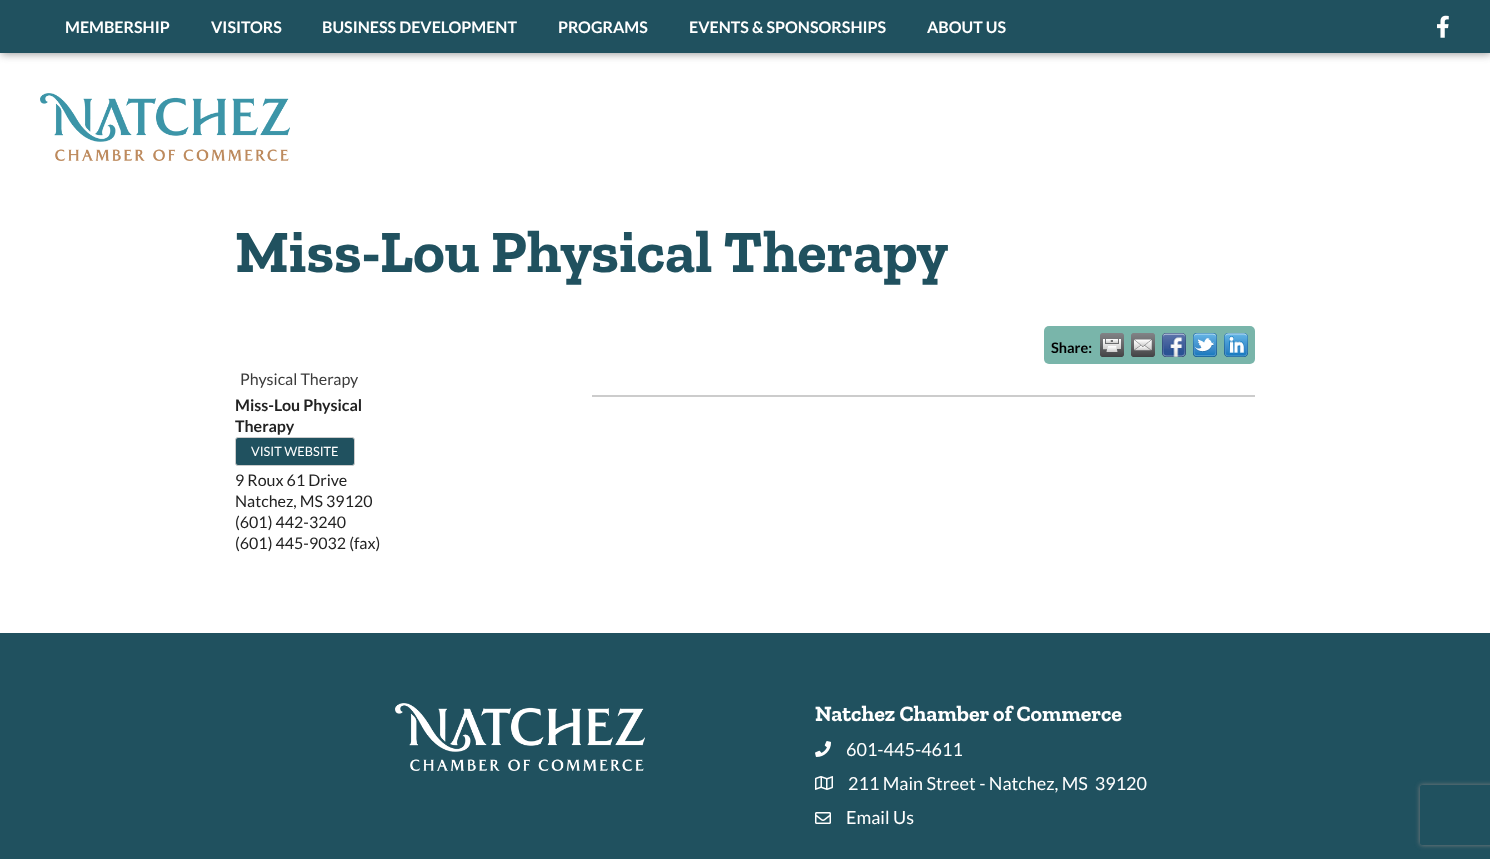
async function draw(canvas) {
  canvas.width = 1490
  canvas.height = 859
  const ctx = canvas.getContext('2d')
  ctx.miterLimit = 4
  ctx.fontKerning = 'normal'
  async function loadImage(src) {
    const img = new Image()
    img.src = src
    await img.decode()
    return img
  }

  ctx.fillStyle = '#fff'
  ctx.fillRect(0, 0, 1490, 859)
  ctx.fillStyle = '#999'
  ctx.filter = 'blur(4.5px)'
  ctx.beginPath()
  ctx.rect(1, 1, 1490, 53)
  ctx.fill()
  ctx.filter = 'none'
  ctx.fillStyle = '#20515f'
  ctx.fillRect(0, 0, 1490, 53)
  ctx.font = 'bold 16px Lato'
  ctx.fillStyle = '#fff'
  ctx.fillText('MEMBERSHIP', 65, 33)
  ctx.fillText('VISITORS', 211, 33)
  ctx.fillText('BUSINESS DEVELOPMENT', 322, 33)
  ctx.fillText('PROGRAMS', 558, 33)
  ctx.fillText('EVENTS & SPONSORSHIPS', 689, 33)
  ctx.fillText('ABOUT US', 927, 33)
  ctx.drawImage(await loadImage('image0.png'), 1437, 15, 12, 23)
  ctx.drawImage(await loadImage('image1.png'), 40, 93, 250, 68)
  ctx.font = 'bold 60px Zilla Slab'
  ctx.fillStyle = '#20515f'
  ctx.fillText('Miss-Lou Physical Therapy', 235, 272)
  ctx.fillStyle = '#79b5aa'
  ctx.beginPath()
  ctx.roundRect(1044, 326, 211, 38, 5)
  ctx.fill()
  ctx.font = 'bold 14.5px Lato'
  ctx.fillStyle = '#000'
  ctx.fillText('Share:', 1051, 353)
  ctx.drawImage(await loadImage('image2.png'), 1100, 333, 24, 24)
  ctx.drawImage(await loadImage('image3.png'), 1131, 333, 24, 24)
  ctx.drawImage(await loadImage('image4.png'), 1162, 333, 24, 24)
  ctx.drawImage(await loadImage('image5.png'), 1193, 333, 24, 24)
  ctx.drawImage(await loadImage('image6.png'), 1224, 333, 24, 24)
  ctx.font = '16px Lato'
  ctx.fillStyle = '#3c3c3c'
  ctx.fillText('Physical Therapy', 240, 385)
  ctx.fillStyle = '#ccc'
  ctx.fillRect(592, 395, 663, 2)
  ctx.font = 'bold 16px Lato'
  ctx.fillStyle = '#222'
  ctx.fillText('Miss-Lou Physical', 235, 411)
  ctx.fillText('Therapy', 235, 432)
  ctx.fillStyle = '#20515f'
  ctx.beginPath()
  ctx.roundRect(235.5, 437.5, 119, 28, 2.5)
  ctx.fill()
  ctx.strokeStyle = '#ccc'
  ctx.stroke()
  ctx.font = '12.75px Lato'
  ctx.fillStyle = '#fff'
  ctx.fillText('VISIT WEBSITE', 251, 456)
  ctx.font = '16px Lato'
  ctx.fillStyle = '#222'
  ctx.fillText('9 Roux 61 Drive', 235, 486)
  ctx.fillText('Natchez, MS 39120', 235, 507)
  ctx.fillText('(601) 442-3240', 235, 528)
  ctx.fillText('(601) 445-9032 (fax)', 235, 549)
  ctx.fillStyle = '#20515f'
  ctx.fillRect(0, 633, 1490, 226)
  ctx.drawImage(await loadImage('image7.png'), 395, 703, 250, 68)
  ctx.font = 'bold 22px Zilla Slab'
  ctx.fillStyle = '#fff'
  ctx.fillText('Natchez Chamber of Commerce', 815, 721)
  ctx.drawImage(await loadImage('image8.png'), 815, 741, 16, 16)
  ctx.font = '18px Lato'
  ctx.fillText('601-445-4611', 846, 756)
  ctx.drawImage(await loadImage('image9.png'), 815, 776, 18, 14)
  ctx.fillText('211 Main Street - Natchez, MS  39120', 848, 790)
  ctx.drawImage(await loadImage('image10.png'), 815, 812, 16, 12)
  ctx.fillText('Email Us', 846, 824)
  ctx.save()
  ctx.beginPath()
  ctx.moveTo(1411, 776)
  ctx.lineTo(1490, 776)
  ctx.lineTo(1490, 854)
  ctx.lineTo(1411, 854)
  ctx.closePath()
  ctx.moveTo(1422, 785)
  ctx.lineTo(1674, 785)
  ctx.bezierCurveTo(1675, 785, 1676, 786, 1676, 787)
  ctx.lineTo(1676, 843)
  ctx.bezierCurveTo(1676, 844, 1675, 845, 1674, 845)
  ctx.lineTo(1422, 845)
  ctx.bezierCurveTo(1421, 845, 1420, 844, 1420, 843)
  ctx.lineTo(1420, 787)
  ctx.bezierCurveTo(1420, 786, 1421, 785, 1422, 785)
  ctx.closePath()
  ctx.clip('evenodd')
  ctx.fillStyle = '#808080'
  ctx.filter = 'blur(2.5px)'
  ctx.beginPath()
  ctx.roundRect(1420, 785, 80, 60, 2)
  ctx.fill()
  ctx.filter = 'none'
  ctx.restore()
}

draw(document.querySelector('canvas'))
